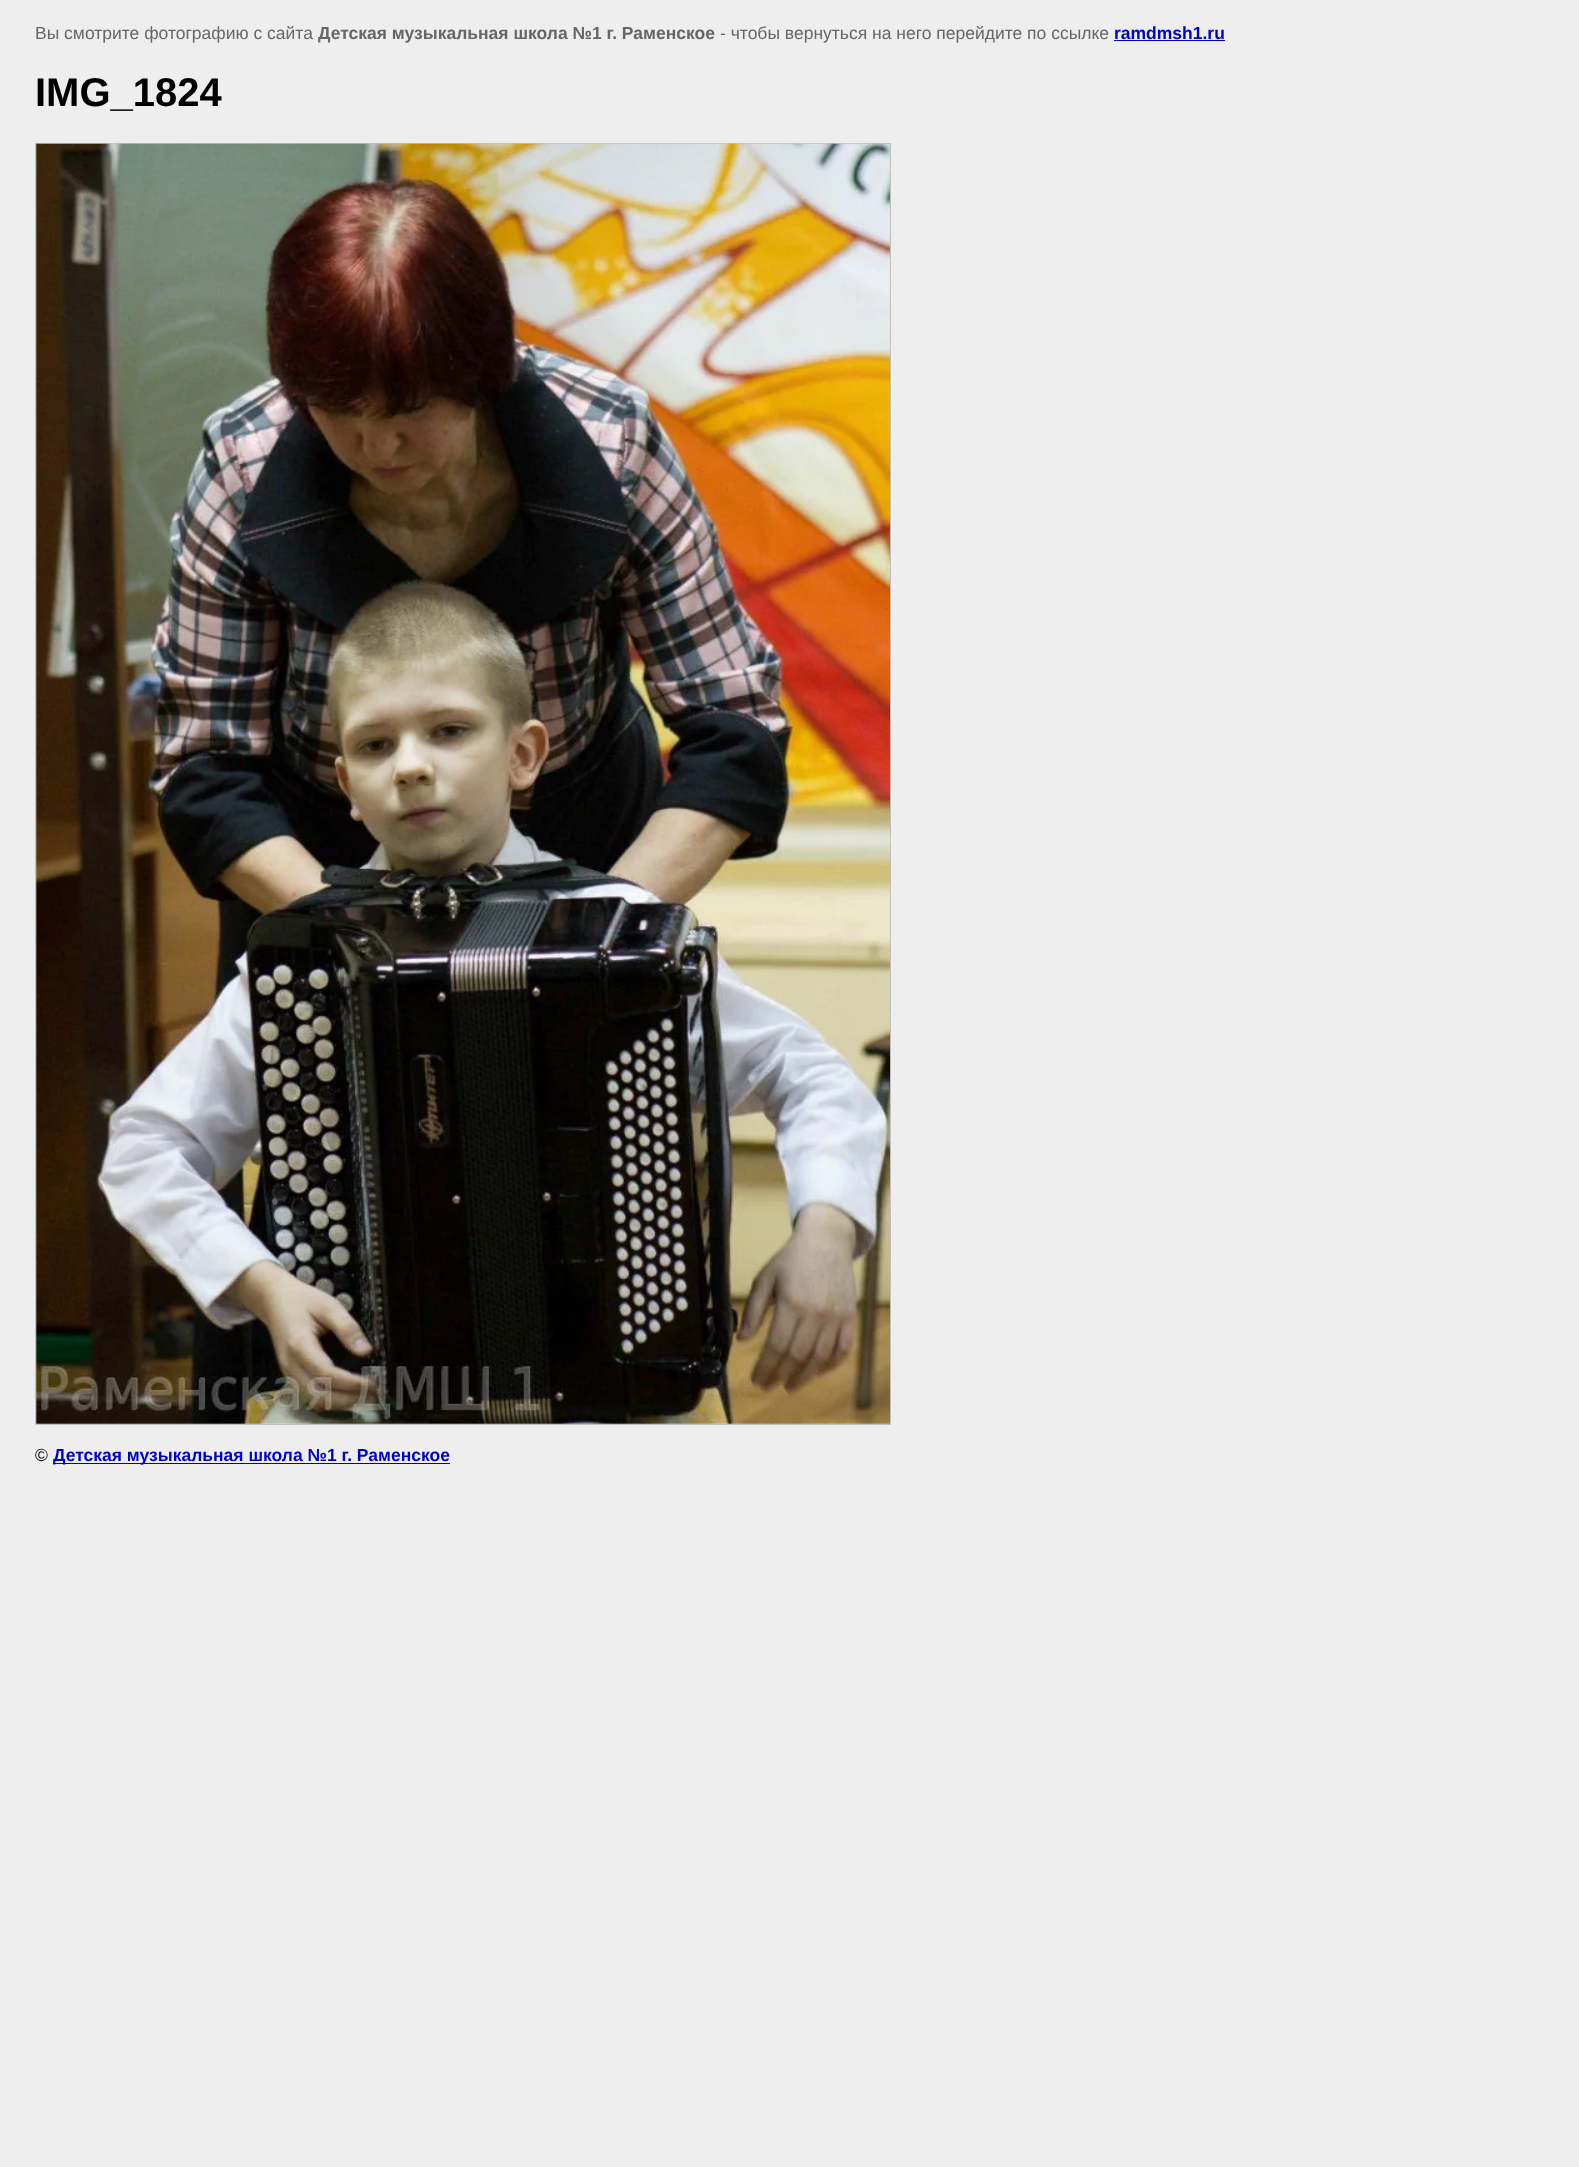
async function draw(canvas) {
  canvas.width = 1579
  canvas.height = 2167
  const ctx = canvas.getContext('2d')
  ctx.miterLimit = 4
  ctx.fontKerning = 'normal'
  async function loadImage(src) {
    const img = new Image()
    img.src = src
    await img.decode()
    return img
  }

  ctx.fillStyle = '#eee'
  ctx.fillRect(0, 0, 1579, 2167)
  ctx.font = '17.5px Liberation Sans'
  ctx.fillStyle = '#666'
  ctx.fillText('Вы смотрите фотографию с сайта', 35, 39)
  ctx.font = 'bold 17.5px Liberation Sans'
  ctx.fillText('Детская музыкальная школа №1 г. Раменское', 318, 39)
  ctx.font = '17.5px Liberation Sans'
  ctx.fillText('- чтобы вернуться на него перейдите по ссылке', 720, 39)
  ctx.font = 'bold 17.5px Liberation Sans'
  ctx.fillStyle = '#00c'
  ctx.fillText('ramdmsh1.ru', 1114, 39)
  ctx.fillRect(1114, 40, 111, 1)
  ctx.font = 'bold 40px Liberation Sans'
  ctx.fillStyle = '#000'
  ctx.fillText('IMG_1824', 35, 106)
  ctx.strokeStyle = '#c0c0c0'
  ctx.strokeRect(35.5, 143.5, 855, 1281)
  ctx.drawImage(await loadImage('image0.png'), 36, 143, 854, 1281)
  ctx.font = '17.5px Liberation Sans'
  ctx.fillText('©', 35, 1461)
  ctx.fillStyle = '#00c'
  ctx.fillRect(53, 1463, 397, 1)
  ctx.font = 'bold 17.5px Liberation Sans'
  ctx.fillText('Детская музыкальная школа №1 г. Раменское', 53, 1461)
}

draw(document.querySelector('canvas'))
